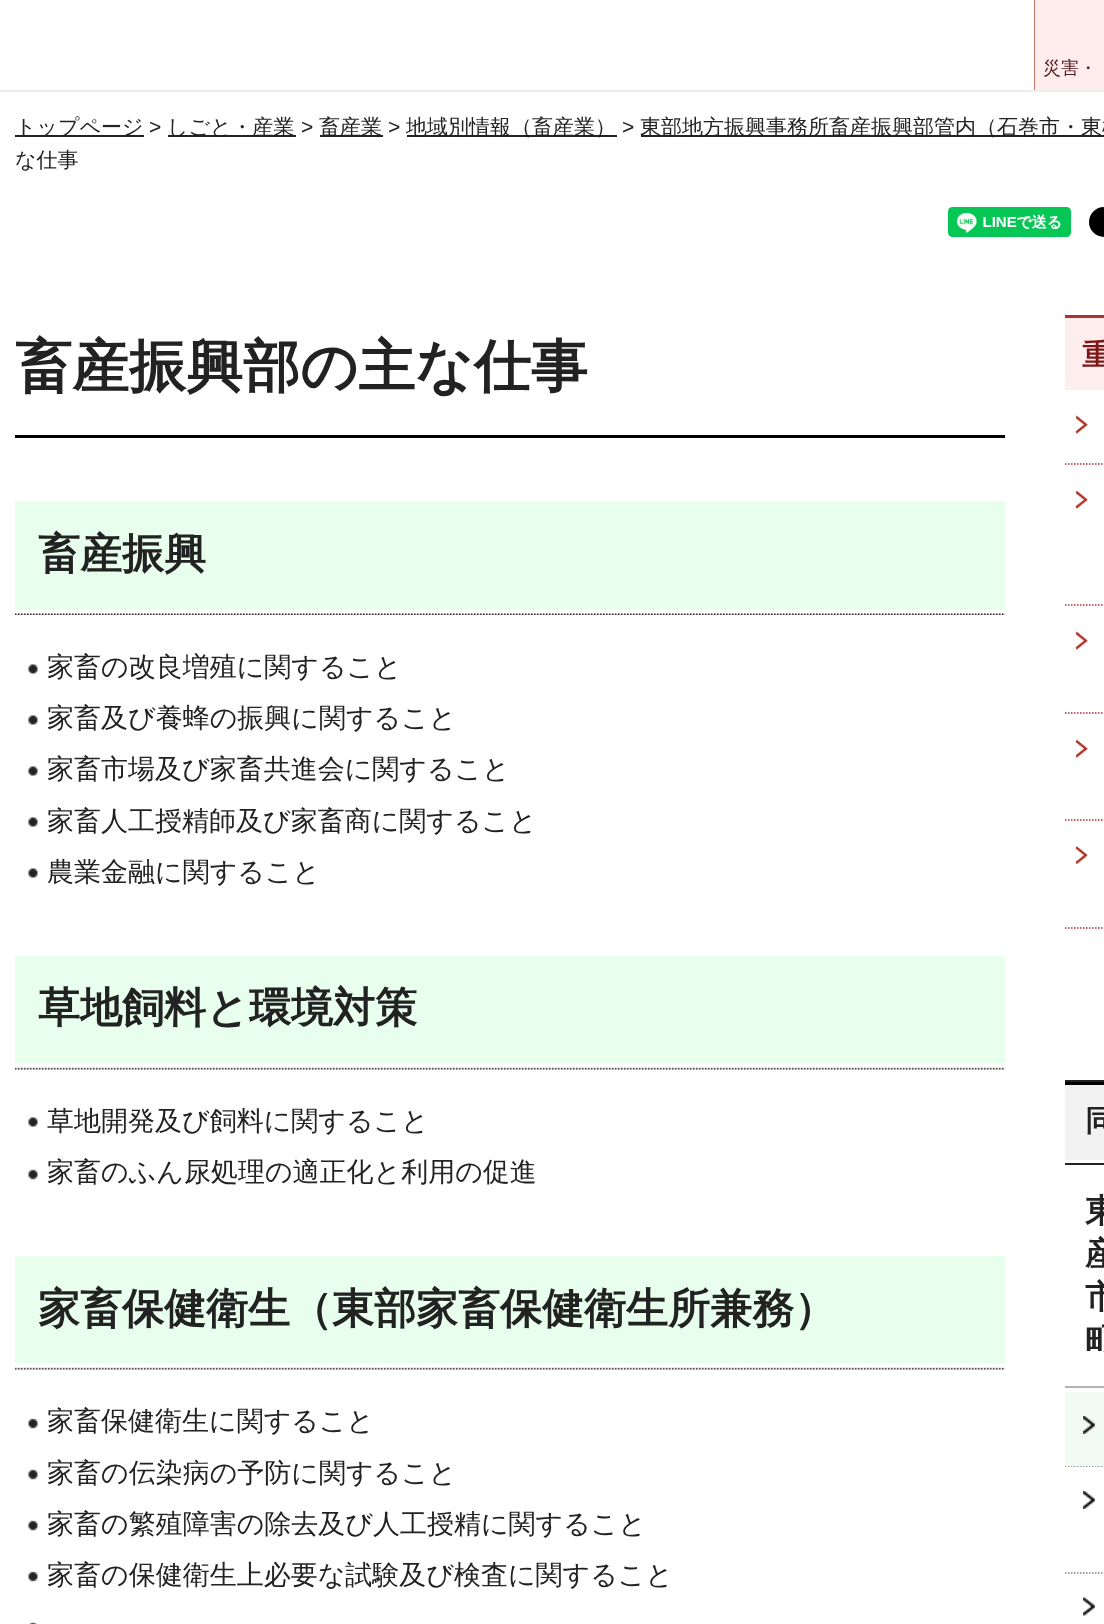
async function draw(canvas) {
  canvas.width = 1104
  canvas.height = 1624
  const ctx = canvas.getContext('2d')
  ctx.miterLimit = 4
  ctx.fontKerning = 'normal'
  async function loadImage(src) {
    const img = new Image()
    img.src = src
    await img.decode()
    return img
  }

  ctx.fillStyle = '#fff'
  ctx.fillRect(0, 0, 1104, 1624)
  ctx.fillStyle = '#ececec'
  ctx.fillRect(0, 90, 1104, 2)
  ctx.fillStyle = '#cd7970'
  ctx.fillRect(1034, 0, 1, 90)
  ctx.fillStyle = '#ffecec'
  ctx.fillRect(1035, 0, 69, 90)
  ctx.font = '500 18px WenQuanYi Zen Hei'
  ctx.fillStyle = '#531b1b'
  ctx.fillText('災害・', 1043, 74)
  ctx.fillStyle = '#222'
  ctx.fillRect(15, 135, 129, 2)
  ctx.font = '500 21px WenQuanYi Zen Hei'
  ctx.fillText('トップページ', 15, 134)
  ctx.font = '21px Liberation Sans'
  ctx.fillText('>', 149, 134)
  ctx.fillRect(168, 135, 128, 2)
  ctx.font = '500 21px WenQuanYi Zen Hei'
  ctx.fillText('しごと・産業', 167, 134)
  ctx.font = '21px Liberation Sans'
  ctx.fillText('>', 301, 134)
  ctx.fillRect(320, 135, 63, 2)
  ctx.font = '500 21px WenQuanYi Zen Hei'
  ctx.fillText('畜産業', 319, 134)
  ctx.font = '21px Liberation Sans'
  ctx.fillText('>', 388, 134)
  ctx.fillRect(407, 135, 210, 2)
  ctx.font = '500 21px WenQuanYi Zen Hei'
  ctx.fillText('地域別情報（畜産業）', 406, 134)
  ctx.font = '21px Liberation Sans'
  ctx.fillText('>', 622, 134)
  ctx.fillRect(641, 135, 463, 2)
  ctx.font = '500 21px WenQuanYi Zen Hei'
  ctx.fillText('東部地方振興事務所畜産振興部管内（石巻市・東松', 640, 134)
  ctx.fillText('な仕事', 15, 167)
  ctx.drawImage(await loadImage('image0.png'), 948, 207, 123, 30)
  ctx.drawImage(await loadImage('image1.png'), 1089, 207, 15, 30)
  ctx.fillStyle = '#000'
  ctx.fillRect(15, 435, 990, 3)
  ctx.font = 'bold 57px WenQuanYi Zen Hei'
  ctx.fillStyle = '#222'
  ctx.fillText('畜産振興部の主な仕事', 15, 386)
  ctx.fillStyle = '#e8ffee'
  ctx.fillRect(15, 501, 990, 108)
  ctx.drawImage(await loadImage('image2.png'), 15, 609, 990, 6)
  ctx.font = 'bold 42px WenQuanYi Zen Hei'
  ctx.fillStyle = '#222'
  ctx.fillText('畜産振興', 38, 568)
  ctx.drawImage(await loadImage('image3.png'), 28, 664, 10, 10)
  ctx.font = '500 27px WenQuanYi Zen Hei'
  ctx.fillText('家畜の改良増殖に関すること', 47, 676)
  ctx.drawImage(await loadImage('image3.png'), 28, 715, 10, 10)
  ctx.fillText('家畜及び養蜂の振興に関すること', 47, 727)
  ctx.drawImage(await loadImage('image3.png'), 28, 766, 10, 10)
  ctx.fillText('家畜市場及び家畜共進会に関すること', 47, 778)
  ctx.drawImage(await loadImage('image3.png'), 28, 817, 10, 10)
  ctx.fillText('家畜人工授精師及び家畜商に関すること', 47, 830)
  ctx.drawImage(await loadImage('image3.png'), 28, 868, 10, 10)
  ctx.fillText('農業金融に関すること', 47, 881)
  ctx.fillStyle = '#e8ffee'
  ctx.fillRect(15, 956, 990, 114)
  ctx.drawImage(await loadImage('image4.png'), 15, 1063, 990, 7)
  ctx.font = 'bold 42px WenQuanYi Zen Hei'
  ctx.fillStyle = '#222'
  ctx.fillText('草地飼料と環境対策', 38, 1022)
  ctx.drawImage(await loadImage('image3.png'), 28, 1117, 10, 10)
  ctx.font = '500 27px WenQuanYi Zen Hei'
  ctx.fillText('草地開発及び飼料に関すること', 47, 1130)
  ctx.drawImage(await loadImage('image5.png'), 28, 1169, 10, 11)
  ctx.fillText('家畜のふん尿処理の適正化と利用の促進', 47, 1181)
  ctx.fillStyle = '#e8ffee'
  ctx.fillRect(15, 1256, 990, 114)
  ctx.drawImage(await loadImage('image4.png'), 15, 1363, 990, 7)
  ctx.font = 'bold 42px WenQuanYi Zen Hei'
  ctx.fillStyle = '#222'
  ctx.fillText('家畜保健衛生（東部家畜保健衛生所兼務）', 38, 1323)
  ctx.drawImage(await loadImage('image5.png'), 28, 1418, 10, 11)
  ctx.font = '500 27px WenQuanYi Zen Hei'
  ctx.fillText('家畜保健衛生に関すること', 47, 1430)
  ctx.drawImage(await loadImage('image5.png'), 28, 1469, 10, 11)
  ctx.fillText('家畜の伝染病の予防に関すること', 47, 1482)
  ctx.drawImage(await loadImage('image5.png'), 28, 1520, 10, 11)
  ctx.fillText('家畜の繁殖障害の除去及び人工授精に関すること', 47, 1533)
  ctx.drawImage(await loadImage('image5.png'), 28, 1571, 10, 11)
  ctx.fillText('家畜の保健衛生上必要な試験及び検査に関すること', 47, 1584)
  ctx.drawImage(await loadImage('image6.png'), 29, 1622, 8, 2)
  ctx.fillStyle = '#fee'
  ctx.fillRect(1065, 318, 39, 72)
  ctx.fillStyle = '#b03030'
  ctx.fillRect(1065, 315, 39, 3)
  ctx.font = 'bold 30px WenQuanYi Zen Hei'
  ctx.fillStyle = '#7f1515'
  ctx.fillText('重', 1082, 365)
  ctx.beginPath()
  ctx.moveTo(1065, 464)
  ctx.lineTo(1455, 464)
  ctx.strokeStyle = '#b03030'
  ctx.lineWidth = 1.5
  ctx.setLineDash([1.5, 1.5])
  ctx.stroke()
  ctx.drawImage(await loadImage('image7.png'), 1075, 415, 13, 19)
  ctx.beginPath()
  ctx.moveTo(1065, 605)
  ctx.lineTo(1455, 605)
  ctx.stroke()
  ctx.drawImage(await loadImage('image7.png'), 1075, 490, 13, 19)
  ctx.beginPath()
  ctx.moveTo(1065, 713)
  ctx.lineTo(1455, 713)
  ctx.stroke()
  ctx.drawImage(await loadImage('image7.png'), 1075, 631, 13, 19)
  ctx.beginPath()
  ctx.moveTo(1065, 820)
  ctx.lineTo(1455, 820)
  ctx.stroke()
  ctx.drawImage(await loadImage('image7.png'), 1075, 739, 13, 19)
  ctx.beginPath()
  ctx.moveTo(1065, 928)
  ctx.lineTo(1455, 928)
  ctx.stroke()
  ctx.drawImage(await loadImage('image8.png'), 1075, 846, 13, 18)
  ctx.fillStyle = '#222'
  ctx.fillRect(1065, 1080, 39, 2)
  ctx.fillStyle = '#b5b3b3'
  ctx.fillRect(1065, 1386, 39, 2)
  ctx.fillStyle = '#f2f2f2'
  ctx.fillRect(1065, 1085, 39, 75)
  ctx.fillStyle = '#000'
  ctx.fillRect(1065, 1082, 39, 3)
  ctx.fillStyle = '#222'
  ctx.fillText('同', 1085, 1131)
  ctx.fillRect(1065, 1163, 39, 2)
  ctx.font = 'bold 33px WenQuanYi Zen Hei'
  ctx.fillText('東', 1085, 1222)
  ctx.fillText('産', 1085, 1265)
  ctx.fillText('市', 1085, 1308)
  ctx.fillText('町', 1085, 1351)
  ctx.beginPath()
  ctx.moveTo(1065, 1466)
  ctx.lineTo(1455, 1466)
  ctx.strokeStyle = '#7f7f7f'
  ctx.stroke()
  ctx.fillStyle = '#f2faf4'
  ctx.fillRect(1065, 1392, 39, 74)
  ctx.drawImage(await loadImage('image9.png'), 1083, 1416, 12, 18)
  ctx.beginPath()
  ctx.moveTo(1065, 1573)
  ctx.lineTo(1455, 1573)
  ctx.stroke()
  ctx.drawImage(await loadImage('image10.png'), 1083, 1491, 12, 18)
  ctx.drawImage(await loadImage('image11.png'), 1083, 1597, 12, 19)
}

draw(document.querySelector('canvas'))
